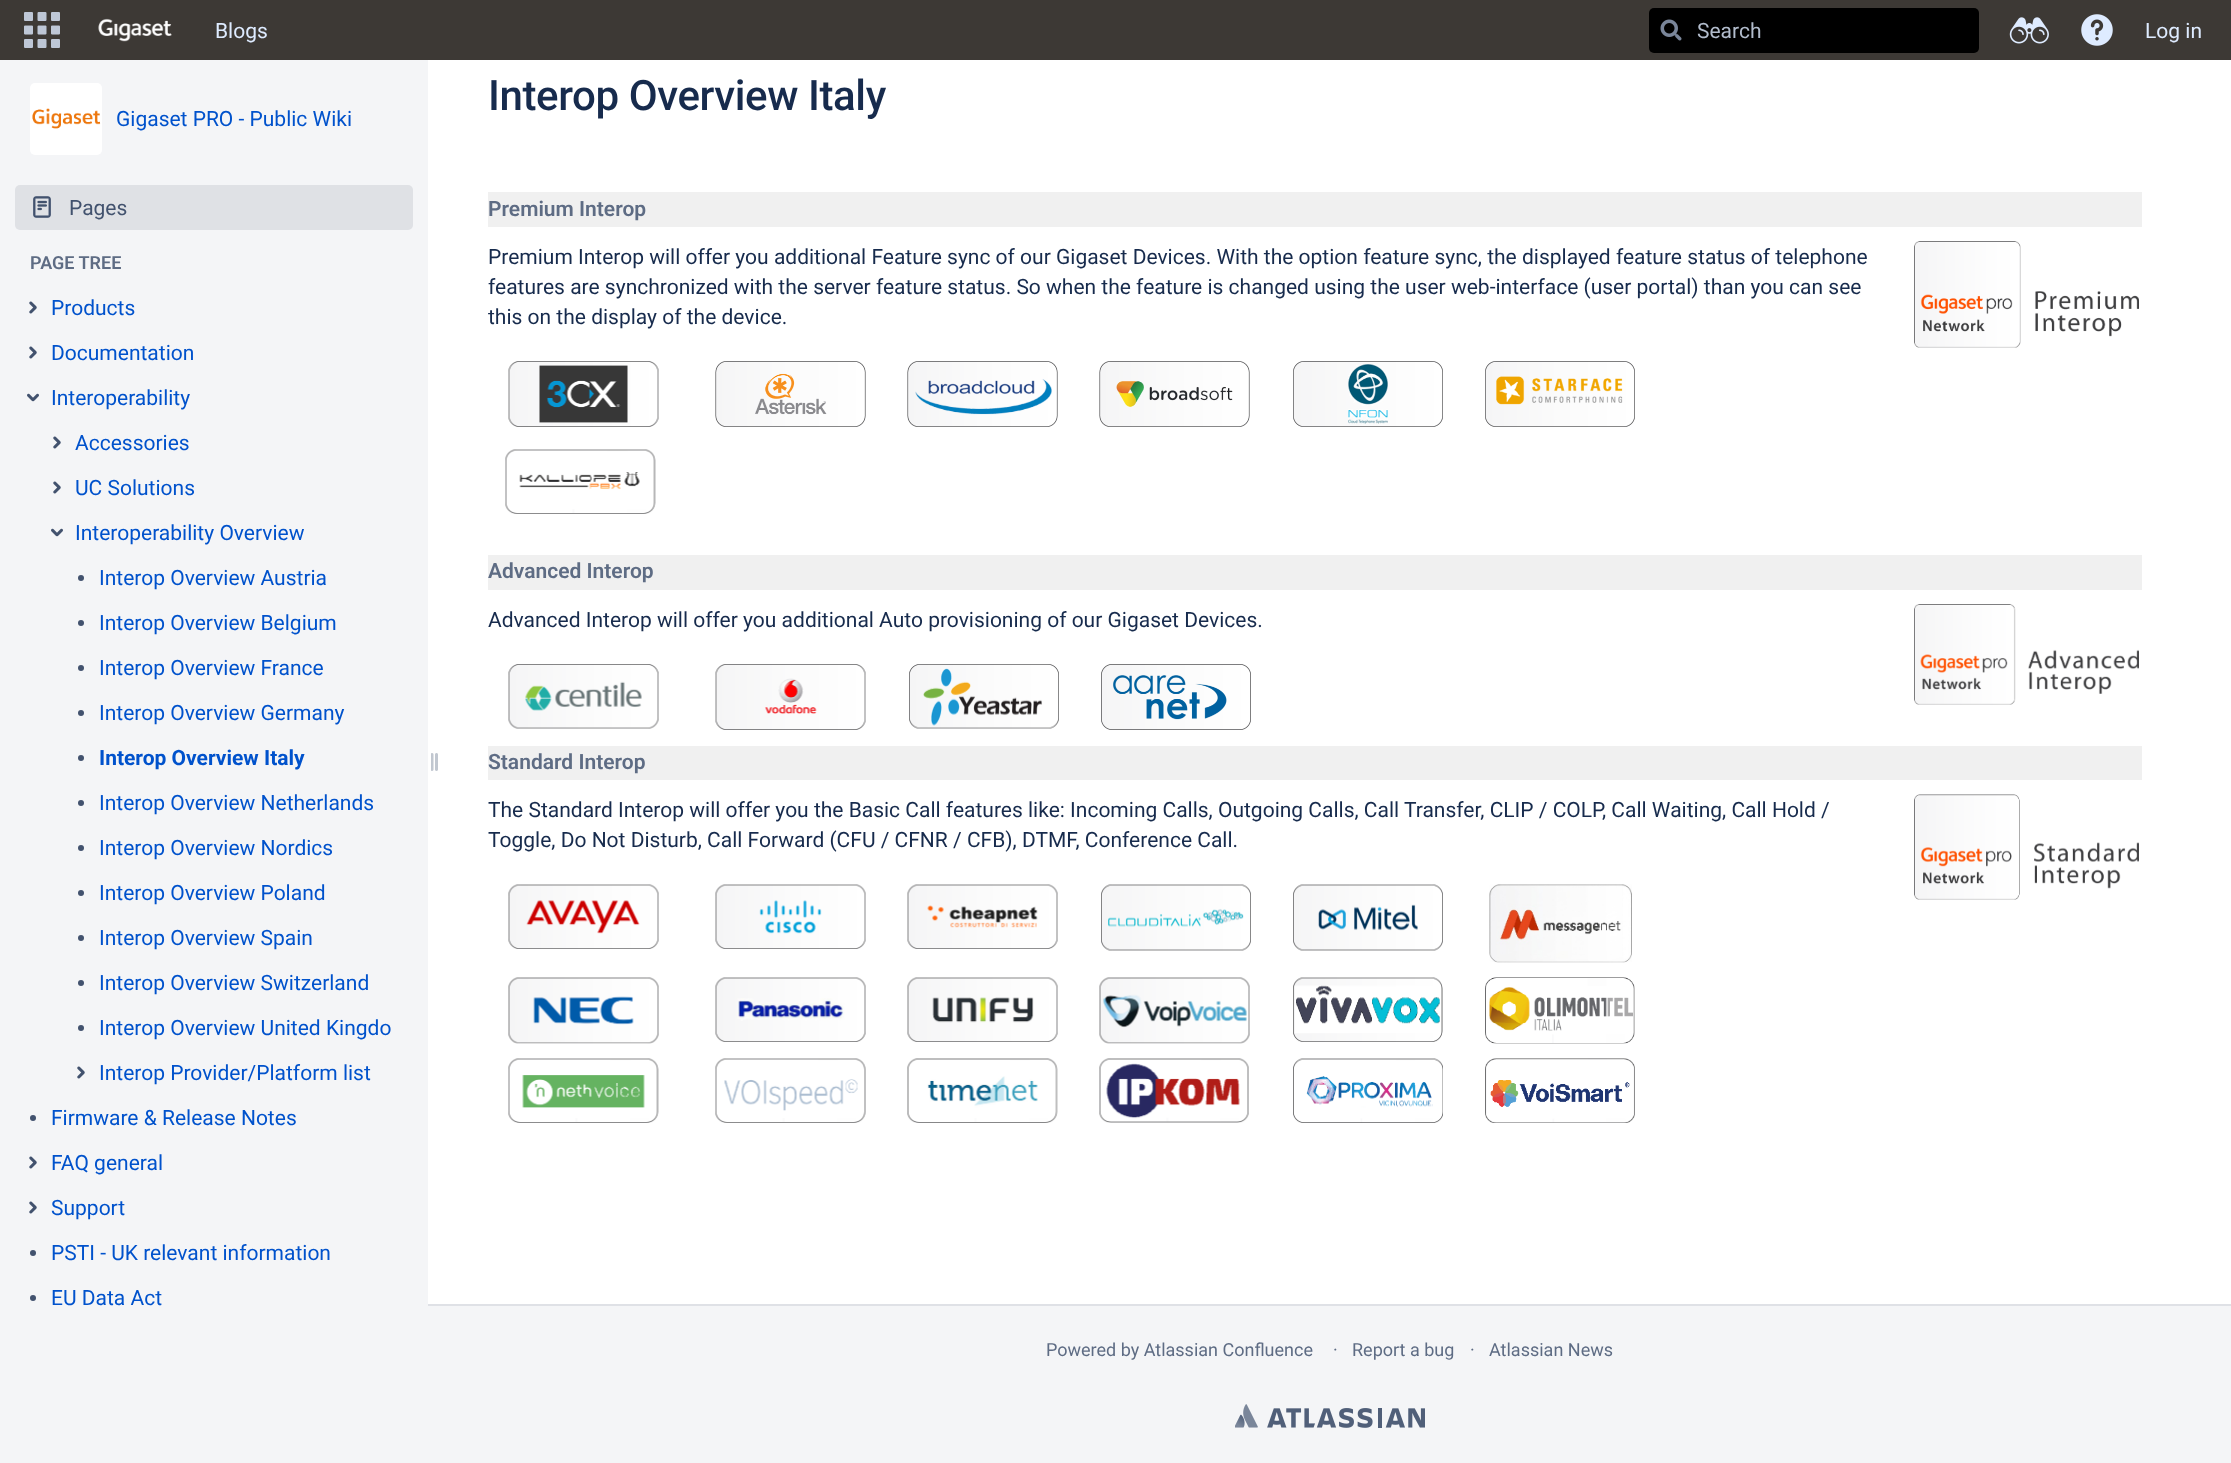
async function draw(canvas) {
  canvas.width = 2231
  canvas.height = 1463
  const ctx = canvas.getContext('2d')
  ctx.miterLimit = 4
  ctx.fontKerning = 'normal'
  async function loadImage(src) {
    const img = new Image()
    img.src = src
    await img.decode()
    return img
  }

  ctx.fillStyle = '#f4f5f7'
  ctx.fillRect(0, 0, 2231, 1463)
  ctx.fillStyle = '#3d3935'
  ctx.fillRect(0, 0, 2231, 60)
  ctx.drawImage(await loadImage('image0.png'), 24, 12, 36, 36)
  ctx.drawImage(await loadImage('image1.png'), 98, 18, 74, 24)
  ctx.font = '21px Roboto'
  ctx.fillStyle = '#deebff'
  ctx.fillText('Blogs', 215, 38)
  ctx.fillStyle = '#000'
  ctx.beginPath()
  ctx.roundRect(1649, 8, 330, 45, 5)
  ctx.fill()
  ctx.drawImage(await loadImage('image2.png'), 1660, 19, 22, 22)
  ctx.fillStyle = '#b2bccc'
  ctx.fillText('Search', 1697, 38)
  ctx.drawImage(await loadImage('image3.png'), 2009, 17, 40, 27)
  ctx.drawImage(await loadImage('image4.png'), 2081, 14, 32, 32)
  ctx.fillStyle = '#deebff'
  ctx.fillText('Log in', 2145, 38)
  ctx.fillStyle = '#fff'
  ctx.beginPath()
  ctx.roundRect(30, 83, 72, 72, 5)
  ctx.fill()
  ctx.drawImage(await loadImage('image5.png'), 32, 108, 69, 21)
  ctx.fillStyle = '#0052cc'
  ctx.fillText('Gigaset PRO - Public Wiki', 116, 126)
  ctx.fillStyle = '#dfe1e5'
  ctx.beginPath()
  ctx.roundRect(15, 185, 398, 45, 5)
  ctx.fill()
  ctx.drawImage(await loadImage('image6.png'), 33, 196, 18, 22)
  ctx.fillStyle = '#42526e'
  ctx.fillText('Pages', 69, 215)
  ctx.font = '600 18px Roboto'
  ctx.fillStyle = '#5e6c84'
  ctx.fillText('PAGE TREE', 30, 269)
  ctx.drawImage(await loadImage('image7.png'), 29, 301, 8, 13)
  ctx.font = '21px Roboto'
  ctx.fillStyle = '#0052cc'
  ctx.fillText('Products', 51, 315)
  ctx.drawImage(await loadImage('image7.png'), 29, 346, 8, 13)
  ctx.fillText('Documentation', 51, 360)
  ctx.drawImage(await loadImage('image8.png'), 27, 393, 12, 9)
  ctx.fillText('Interoperability', 51, 405)
  ctx.drawImage(await loadImage('image7.png'), 53, 436, 8, 13)
  ctx.fillText('Accessories', 75, 450)
  ctx.drawImage(await loadImage('image7.png'), 53, 481, 8, 13)
  ctx.fillText('UC Solutions', 75, 495)
  ctx.drawImage(await loadImage('image8.png'), 51, 528, 12, 9)
  ctx.fillText('Interoperability Overview', 75, 540)
  ctx.fillStyle = '#42526e'
  ctx.beginPath()
  ctx.arc(81, 578, 3, 0, 2 * Math.PI)
  ctx.fill()
  ctx.fillStyle = '#0052cc'
  ctx.fillText('Interop Overview Austria', 99, 585)
  ctx.fillStyle = '#42526e'
  ctx.beginPath()
  ctx.arc(81, 623, 3, 0, 2 * Math.PI)
  ctx.fill()
  ctx.fillStyle = '#0052cc'
  ctx.fillText('Interop Overview Belgium', 99, 630)
  ctx.fillStyle = '#42526e'
  ctx.beginPath()
  ctx.arc(81, 668, 3, 0, 2 * Math.PI)
  ctx.fill()
  ctx.fillStyle = '#0052cc'
  ctx.fillText('Interop Overview France', 99, 675)
  ctx.fillStyle = '#42526e'
  ctx.beginPath()
  ctx.arc(81, 713, 3, 0, 2 * Math.PI)
  ctx.fill()
  ctx.fillStyle = '#0052cc'
  ctx.fillText('Interop Overview Germany', 99, 720)
  ctx.fillStyle = '#42526e'
  ctx.beginPath()
  ctx.arc(81, 758, 3, 0, 2 * Math.PI)
  ctx.fill()
  ctx.font = 'bold 21px Roboto'
  ctx.fillStyle = '#0052cc'
  ctx.fillText('Interop Overview Italy', 99, 765)
  ctx.fillStyle = '#42526e'
  ctx.beginPath()
  ctx.arc(81, 803, 3, 0, 2 * Math.PI)
  ctx.fill()
  ctx.font = '21px Roboto'
  ctx.fillStyle = '#0052cc'
  ctx.fillText('Interop Overview Netherlands', 99, 810)
  ctx.fillStyle = '#42526e'
  ctx.beginPath()
  ctx.arc(81, 848, 3, 0, 2 * Math.PI)
  ctx.fill()
  ctx.fillStyle = '#0052cc'
  ctx.fillText('Interop Overview Nordics', 99, 855)
  ctx.fillStyle = '#42526e'
  ctx.beginPath()
  ctx.arc(81, 893, 3, 0, 2 * Math.PI)
  ctx.fill()
  ctx.fillStyle = '#0052cc'
  ctx.fillText('Interop Overview Poland', 99, 900)
  ctx.fillStyle = '#42526e'
  ctx.beginPath()
  ctx.arc(81, 938, 3, 0, 2 * Math.PI)
  ctx.fill()
  ctx.fillStyle = '#0052cc'
  ctx.fillText('Interop Overview Spain', 99, 945)
  ctx.fillStyle = '#42526e'
  ctx.beginPath()
  ctx.arc(81, 983, 3, 0, 2 * Math.PI)
  ctx.fill()
  ctx.fillStyle = '#0052cc'
  ctx.fillText('Interop Overview Switzerland', 99, 990)
  ctx.fillStyle = '#42526e'
  ctx.beginPath()
  ctx.arc(81, 1028, 3, 0, 2 * Math.PI)
  ctx.fill()
  ctx.fillStyle = '#0052cc'
  ctx.fillText('Interop Overview United Kingdo', 99, 1035)
  ctx.drawImage(await loadImage('image7.png'), 77, 1066, 8, 13)
  ctx.fillText('Interop Provider/Platform list', 99, 1080)
  ctx.fillStyle = '#42526e'
  ctx.beginPath()
  ctx.arc(33, 1118, 3, 0, 2 * Math.PI)
  ctx.fill()
  ctx.fillStyle = '#0052cc'
  ctx.fillText('Firmware & Release Notes', 51, 1125)
  ctx.drawImage(await loadImage('image7.png'), 29, 1156, 8, 13)
  ctx.fillText('FAQ general', 51, 1170)
  ctx.drawImage(await loadImage('image7.png'), 29, 1201, 8, 13)
  ctx.fillText('Support', 51, 1215)
  ctx.fillStyle = '#42526e'
  ctx.beginPath()
  ctx.arc(33, 1253, 3, 0, 2 * Math.PI)
  ctx.fill()
  ctx.fillStyle = '#0052cc'
  ctx.fillText('PSTI - UK relevant information', 51, 1260)
  ctx.fillStyle = '#42526e'
  ctx.beginPath()
  ctx.arc(33, 1298, 3, 0, 2 * Math.PI)
  ctx.fill()
  ctx.fillStyle = '#0052cc'
  ctx.fillText('EU Data Act', 51, 1305)
  ctx.fillStyle = '#fff'
  ctx.fillRect(428, 60, 1803, 1244)
  ctx.drawImage(await loadImage('image9.png'), 431, 753, 7, 18)
  ctx.fillStyle = '#dfe1e6'
  ctx.fillRect(428, 1304, 1803, 2)
  ctx.letterSpacing = '-0.4px'
  ctx.font = '500 42px Roboto'
  ctx.fillStyle = '#172b4d'
  ctx.fillText('Interop Overview Italy', 488, 110)
  ctx.fillStyle = '#f0f0f0'
  ctx.fillRect(488, 192, 1654, 35)
  ctx.letterSpacing = '0px'
  ctx.font = '600 21px Roboto'
  ctx.fillStyle = '#5e6c84'
  ctx.fillText('Premium Interop', 488, 216)
  ctx.font = '21px Roboto'
  ctx.fillStyle = '#172b4d'
  ctx.fillText('Premium Interop will offer you additional Feature sync of our Gigaset Devices. With the option feature sync, the displayed feature status of telephone', 488, 264)
  ctx.fillText('features are synchronized with the server feature status. So when the feature is changed using the user web-interface (user portal) than you can see', 488, 294)
  ctx.fillText('this on the display of the device.', 488, 324)
  ctx.drawImage(await loadImage('image10.png'), 1914, 241, 225, 107)
  ctx.drawImage(await loadImage('image11.png'), 508, 361, 151, 66)
  ctx.drawImage(await loadImage('image12.png'), 715, 361, 151, 66)
  ctx.drawImage(await loadImage('image13.png'), 907, 361, 151, 66)
  ctx.drawImage(await loadImage('image14.png'), 1099, 361, 151, 66)
  ctx.drawImage(await loadImage('image15.png'), 1293, 361, 150, 66)
  ctx.drawImage(await loadImage('image16.png'), 1485, 361, 150, 66)
  ctx.drawImage(await loadImage('image17.png'), 505, 449, 151, 65)
  ctx.fillStyle = '#f0f0f0'
  ctx.fillRect(488, 555, 1654, 35)
  ctx.font = '600 21px Roboto'
  ctx.fillStyle = '#5e6c84'
  ctx.fillText('Advanced Interop', 488, 578)
  ctx.font = '21px Roboto'
  ctx.fillStyle = '#172b4d'
  ctx.fillText('Advanced Interop will offer you additional Auto provisioning of our Gigaset Devices.', 488, 627)
  ctx.drawImage(await loadImage('image18.png'), 1914, 604, 225, 101)
  ctx.drawImage(await loadImage('image19.png'), 508, 664, 151, 65)
  ctx.drawImage(await loadImage('image20.png'), 715, 664, 151, 66)
  ctx.drawImage(await loadImage('image21.png'), 909, 664, 150, 65)
  ctx.drawImage(await loadImage('image22.png'), 1101, 664, 150, 66)
  ctx.fillStyle = '#f0f0f0'
  ctx.fillRect(488, 746, 1654, 34)
  ctx.font = '600 21px Roboto'
  ctx.fillStyle = '#5e6c84'
  ctx.fillText('Standard Interop', 488, 769)
  ctx.font = '21px Roboto'
  ctx.fillStyle = '#172b4d'
  ctx.fillText('The Standard Interop will offer you the Basic Call features like: Incoming Calls, Outgoing Calls, Call Transfer, CLIP / COLP, Call Waiting, Call Hold /', 488, 817)
  ctx.fillText('Toggle, Do Not Disturb, Call Forward (CFU / CFNR / CFB), DTMF, Conference Call.', 488, 847)
  ctx.drawImage(await loadImage('image23.png'), 1914, 794, 225, 106)
  ctx.drawImage(await loadImage('image24.png'), 508, 884, 151, 65)
  ctx.drawImage(await loadImage('image25.png'), 715, 884, 151, 65)
  ctx.drawImage(await loadImage('image26.png'), 907, 884, 151, 65)
  ctx.drawImage(await loadImage('image27.png'), 1101, 884, 150, 67)
  ctx.drawImage(await loadImage('image28.png'), 1293, 884, 150, 67)
  ctx.drawImage(await loadImage('image29.png'), 1489, 884, 143, 79)
  ctx.drawImage(await loadImage('image30.png'), 508, 977, 151, 67)
  ctx.drawImage(await loadImage('image31.png'), 715, 977, 151, 65)
  ctx.drawImage(await loadImage('image32.png'), 907, 977, 151, 65)
  ctx.drawImage(await loadImage('image33.png'), 1099, 977, 151, 67)
  ctx.drawImage(await loadImage('image34.png'), 1293, 977, 150, 65)
  ctx.drawImage(await loadImage('image35.png'), 1485, 977, 150, 67)
  ctx.drawImage(await loadImage('image36.png'), 508, 1058, 151, 65)
  ctx.drawImage(await loadImage('image37.png'), 715, 1058, 151, 65)
  ctx.drawImage(await loadImage('image38.png'), 907, 1058, 151, 65)
  ctx.drawImage(await loadImage('image39.png'), 1099, 1058, 150, 65)
  ctx.drawImage(await loadImage('image40.png'), 1293, 1058, 150, 65)
  ctx.drawImage(await loadImage('image41.png'), 1485, 1058, 150, 65)
  ctx.font = '18px Roboto'
  ctx.fillStyle = '#5e6c84'
  ctx.fillText('Powered by Atlassian Confluence', 1046, 1356)
  ctx.fillText('·', 1333, 1356)
  ctx.fillText('Report a bug', 1352, 1356)
  ctx.fillText('·', 1470, 1356)
  ctx.fillText('Atlassian News', 1489, 1356)
  ctx.drawImage(await loadImage('image42.png'), 1235, 1404, 190, 24)
}

draw(document.querySelector('canvas'))
